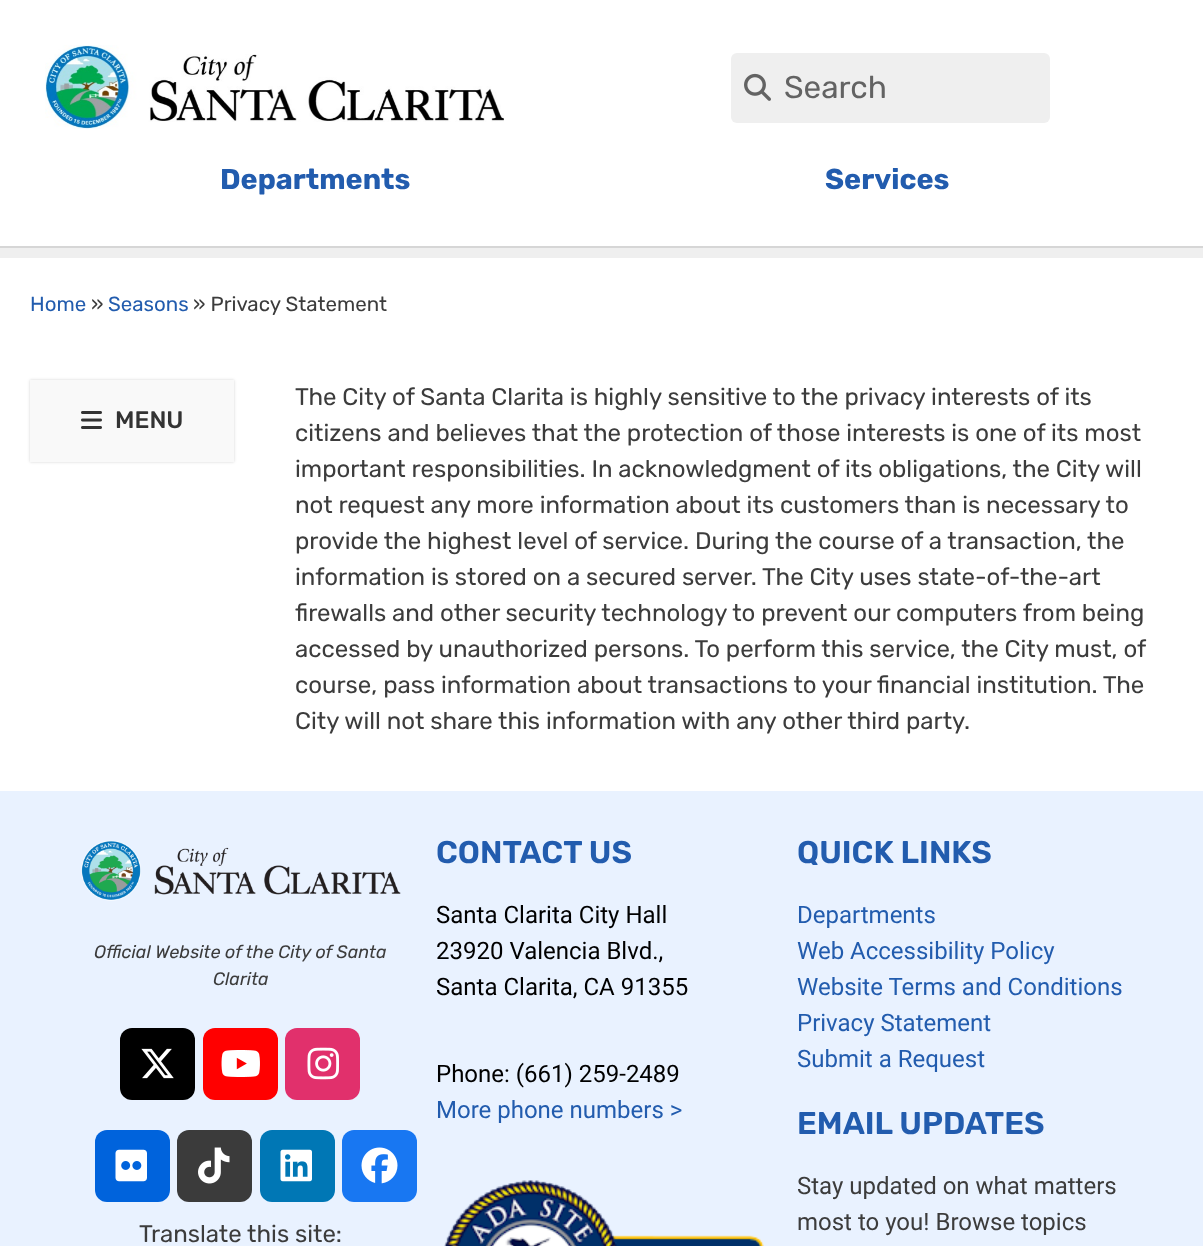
async function draw(canvas) {
  canvas.width = 1203
  canvas.height = 1246
  const ctx = canvas.getContext('2d')
  ctx.miterLimit = 4
  ctx.fontKerning = 'normal'
  async function loadImage(src) {
    const img = new Image()
    img.src = src
    await img.decode()
    return img
  }

  ctx.fillStyle = '#fff'
  ctx.fillRect(0, 0, 1203, 1246)
  ctx.fillStyle = '#d6d6d6'
  ctx.fillRect(0, 246, 1203, 2)
  ctx.drawImage(await loadImage('image0.png'), 45, 45, 459, 84)
  ctx.fillStyle = '#efefef'
  ctx.beginPath()
  ctx.roundRect(731, 53, 319, 70, 6)
  ctx.fill()
  ctx.drawImage(await loadImage('image1.png'), 744, 73, 27, 28)
  ctx.font = '31.5px Rubik'
  ctx.fillStyle = '#636363'
  ctx.fillText('Search', 784, 98)
  ctx.font = 'bold 28.75px Rubik'
  ctx.fillStyle = '#225cae'
  ctx.fillText('Departments', 220, 189)
  ctx.fillText('Services', 825, 189)
  ctx.fillStyle = '#efefef'
  ctx.fillRect(0, 248, 1203, 10)
  ctx.font = '20.5px Rubik'
  ctx.fillStyle = '#225cae'
  ctx.fillText('Home', 30, 311)
  ctx.fillStyle = '#3c3c3c'
  ctx.fillText('»', 91, 311)
  ctx.fillStyle = '#225cae'
  ctx.fillText('Seasons', 108, 311)
  ctx.fillStyle = '#3c3c3c'
  ctx.fillText('» Privacy Statement', 193, 311)
  ctx.fillStyle = '#0000002b'
  ctx.filter = 'blur(1.5px)'
  ctx.beginPath()
  ctx.rect(30, 380, 204, 82)
  ctx.fill()
  ctx.filter = 'none'
  ctx.fillStyle = '#f9f9f9'
  ctx.fillRect(30, 380, 204, 82)
  ctx.drawImage(await loadImage('image2.png'), 81, 411, 21, 18)
  ctx.font = '500 24px Rubik'
  ctx.fillStyle = '#333'
  ctx.fillText('MENU', 115, 428)
  ctx.font = '24px Rubik'
  ctx.fillStyle = '#3c3c3c'
  ctx.fillText('The City of Santa Clarita is highly sensitive to the privacy interests of its', 295, 405)
  ctx.fillText('citizens and believes that the protection of those interests is one of its most', 295, 441)
  ctx.fillText('important responsibilities. In acknowledgment of its obligations, the City will', 295, 477)
  ctx.fillText('not request any more information about its customers than is necessary to', 295, 513)
  ctx.fillText('provide the highest level of service. During the course of a transaction, the', 295, 549)
  ctx.fillText('information is stored on a secured server. The City uses state-of-the-art', 295, 585)
  ctx.fillText('firewalls and other security technology to prevent our computers from being', 295, 621)
  ctx.fillText('accessed by unauthorized persons. To perform this service, the City must, of', 295, 657)
  ctx.fillText('course, pass information about transactions to your financial institution. The', 295, 693)
  ctx.fillText('City will not share this information with any other third party.', 295, 729)
  ctx.fillStyle = '#e9f2ff'
  ctx.fillRect(0, 791, 1203, 455)
  ctx.drawImage(await loadImage('image3.png'), 81, 840, 320, 61)
  ctx.font = 'italic 18px Rubik'
  ctx.fillStyle = '#3c3c3c'
  ctx.fillText('Official Website of the City of Santa', 94, 958)
  ctx.fillText('Clarita', 213, 985)
  ctx.fillStyle = '#000'
  ctx.beginPath()
  ctx.roundRect(120, 1028, 75, 72, 12)
  ctx.fill()
  ctx.drawImage(await loadImage('image4.png'), 141, 1048, 33, 31)
  ctx.fillStyle = '#f00'
  ctx.beginPath()
  ctx.roundRect(203, 1028, 75, 72, 12)
  ctx.fill()
  ctx.drawImage(await loadImage('image5.png'), 221, 1050, 39, 27)
  ctx.fillStyle = '#e1306c'
  ctx.beginPath()
  ctx.roundRect(285, 1028, 75, 72, 12)
  ctx.fill()
  ctx.drawImage(await loadImage('image6.png'), 307, 1047, 32, 33)
  ctx.fillStyle = '#0063dc'
  ctx.beginPath()
  ctx.roundRect(95, 1130, 75, 72, 12)
  ctx.fill()
  ctx.drawImage(await loadImage('image7.png'), 115, 1149, 32, 33)
  ctx.fillStyle = '#3b3b3b'
  ctx.beginPath()
  ctx.roundRect(177, 1130, 75, 72, 12)
  ctx.fill()
  ctx.drawImage(await loadImage('image8.png'), 198, 1147, 32, 37)
  ctx.fillStyle = '#0077b5'
  ctx.beginPath()
  ctx.roundRect(260, 1130, 75, 72, 12)
  ctx.fill()
  ctx.drawImage(await loadImage('image9.png'), 280, 1149, 32, 33)
  ctx.fillStyle = '#1877f2'
  ctx.beginPath()
  ctx.roundRect(342, 1130, 75, 72, 12)
  ctx.fill()
  ctx.drawImage(await loadImage('image10.png'), 361, 1147, 37, 37)
  ctx.font = '24px Rubik'
  ctx.fillStyle = '#3c3c3c'
  ctx.fillText('Translate this site:', 139, 1242)
  ctx.font = '600 31.5px Rubik'
  ctx.fillStyle = '#225cae'
  ctx.fillText('CONTACT US', 436, 863)
  ctx.font = '24px Roboto'
  ctx.fillStyle = '#000'
  ctx.fillText('Santa Clarita City Hall', 436, 923)
  ctx.fillText('23920 Valencia Blvd.,', 436, 959)
  ctx.fillText('Santa Clarita, CA 91355', 436, 995)
  ctx.fillText('Phone: (661) 259-2489', 436, 1082)
  ctx.fillStyle = '#225cae'
  ctx.fillText('More phone numbers >', 436, 1118)
  ctx.drawImage(await loadImage('image11.png'), 444, 1180, 320, 66)
  ctx.font = '600 31.5px Rubik'
  ctx.fillText('QUICK LINKS', 797, 863)
  ctx.font = '24px Roboto'
  ctx.fillText('Departments', 797, 923)
  ctx.fillText('Web Accessibility Policy', 797, 959)
  ctx.fillText('Website Terms and Conditions', 797, 995)
  ctx.fillText('Privacy Statement', 797, 1031)
  ctx.fillText('Submit a Request', 797, 1067)
  ctx.font = '600 31.5px Rubik'
  ctx.fillText('EMAIL UPDATES', 797, 1134)
  ctx.font = '24px Roboto'
  ctx.fillStyle = '#3c3c3c'
  ctx.fillText('Stay updated on what matters', 797, 1194)
  ctx.fillText('most to you! Browse topics', 797, 1230)
}

draw(document.querySelector('canvas'))
